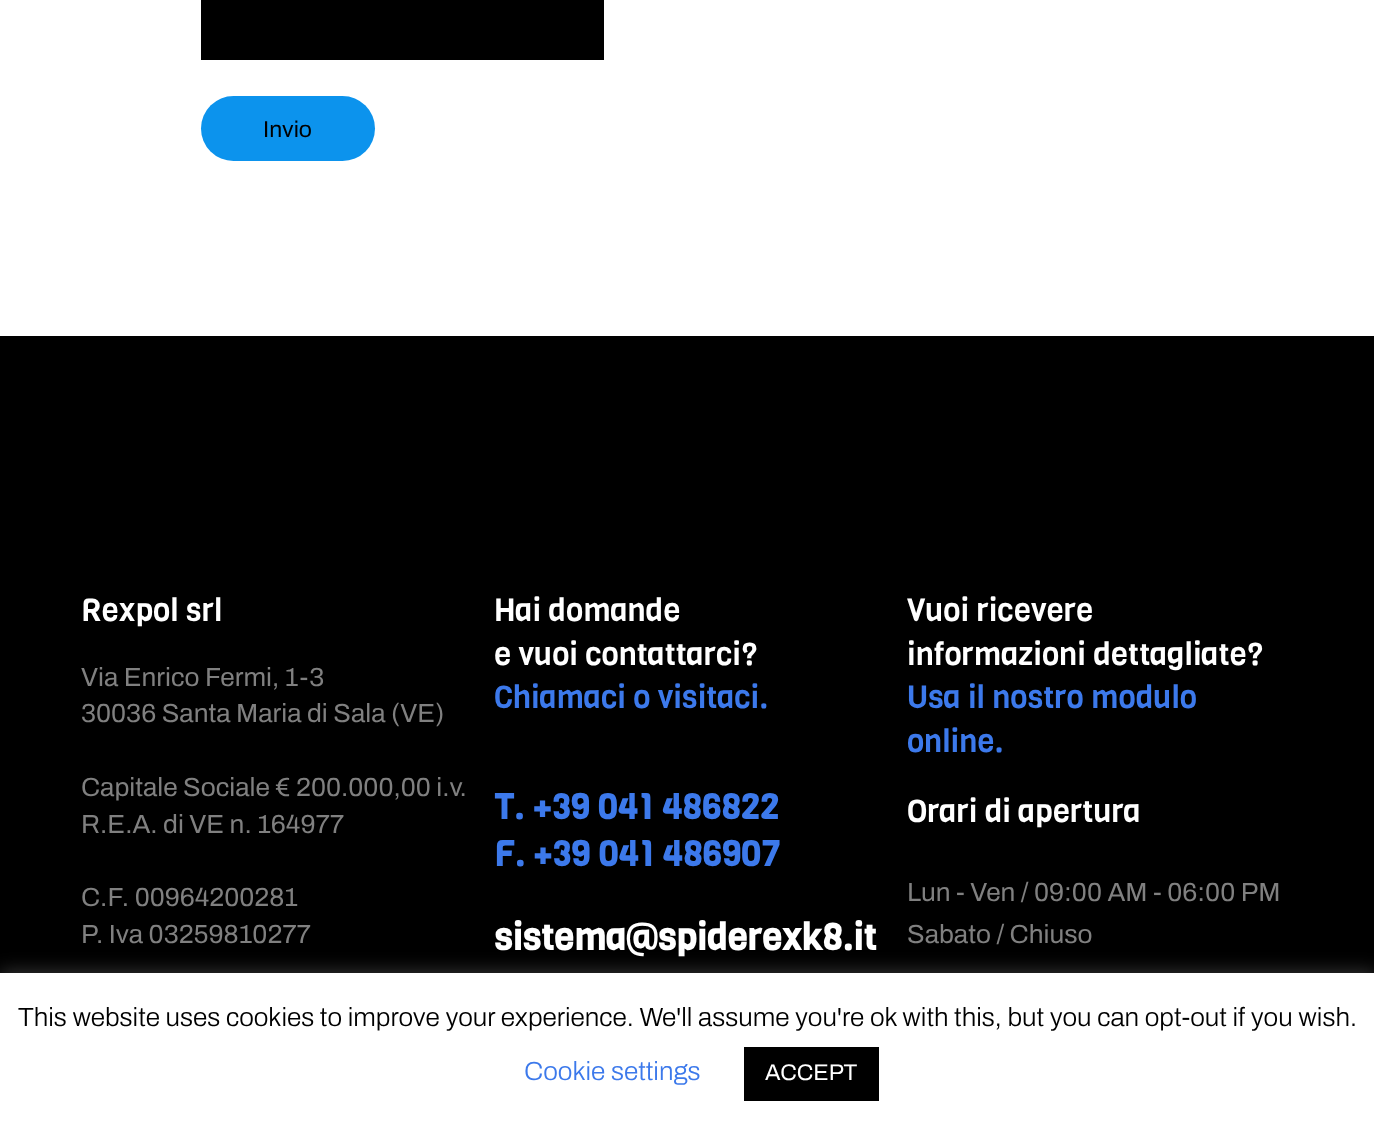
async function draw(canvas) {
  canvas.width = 1374
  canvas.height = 1129
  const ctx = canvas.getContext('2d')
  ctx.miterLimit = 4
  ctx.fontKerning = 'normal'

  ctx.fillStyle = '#fff'
  ctx.fillRect(0, 0, 1374, 1129)
  ctx.fillStyle = '#000'
  ctx.fillRect(201, 0, 403, 60)
  ctx.fillStyle = '#0c93ed'
  ctx.beginPath()
  ctx.roundRect(201, 96, 174, 65, 32.5)
  ctx.fill()
  ctx.font = '23px Archivo'
  ctx.fillStyle = '#000'
  ctx.fillText('Invio', 263, 137)
  ctx.fillRect(0, 336, 1374, 637)
  ctx.font = '31.5px Viga'
  ctx.fillStyle = '#fff'
  ctx.fillText('Rexpol srl', 81, 621)
  ctx.font = '26.25px Archivo'
  ctx.fillStyle = '#808080'
  ctx.fillText('Via Enrico Fermi, 1-3', 81, 686)
  ctx.fillText('30036 Santa Maria di Sala (VE)', 81, 722)
  ctx.fillText('Capitale Sociale € 200.000,00 i.v.', 81, 796)
  ctx.fillText('R.E.A. di VE n. 164977', 81, 833)
  ctx.fillText('C.F. 00964200281', 81, 906)
  ctx.fillText('P. Iva 03259810277', 81, 943)
  ctx.font = '31.5px Viga'
  ctx.fillStyle = '#fff'
  ctx.fillText('Hai domande', 494, 621)
  ctx.fillText('e vuoi contattarci?', 494, 665)
  ctx.fillStyle = '#3c79eb'
  ctx.fillText('Chiamaci o visitaci.', 494, 708)
  ctx.font = 'bold 35px Viga'
  ctx.fillText('T. +39 041 486822', 494, 819)
  ctx.fillText('F. +39 041 486907', 494, 866)
  ctx.font = 'bold 36.75px Viga'
  ctx.fillStyle = '#fff'
  ctx.fillText('sistema@spiderexk8.it', 494, 950)
  ctx.font = '31.5px Viga'
  ctx.fillText('Vuoi ricevere', 907, 621)
  ctx.fillText('informazioni dettagliate?', 907, 665)
  ctx.fillStyle = '#3c79eb'
  ctx.fillText('Usa il nostro modulo', 907, 708)
  ctx.fillText('online.', 907, 752)
  ctx.fillStyle = '#fff'
  ctx.fillText('Orari di apertura', 907, 822)
  ctx.font = '26.25px Archivo'
  ctx.fillStyle = '#808080'
  ctx.fillText('Lun - Ven / 09:00 AM - 06:00 PM', 907, 901)
  ctx.fillText('Sabato / Chiuso', 907, 943)
  ctx.fillStyle = '#acabab4d'
  ctx.filter = 'blur(9px)'
  ctx.beginPath()
  ctx.rect(0, 971, 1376, 158)
  ctx.fill()
  ctx.filter = 'none'
  ctx.fillStyle = '#fff'
  ctx.fillRect(0, 973, 1374, 156)
  ctx.font = '300 26.25px Archivo'
  ctx.fillStyle = '#000'
  ctx.fillText('This website uses cookies to improve your experience. We\'ll assume you\'re ok with this, but you can opt-out if you wish.', 18, 1026)
  ctx.fillStyle = '#3c79eb'
  ctx.fillText('Cookie settings', 524, 1080)
  ctx.fillStyle = '#000'
  ctx.fillRect(744, 1047, 135, 54)
  ctx.font = '22.75px Archivo'
  ctx.fillStyle = '#fff'
  ctx.fillText('ACCEPT', 765, 1080)
}

draw(document.querySelector('canvas'))
